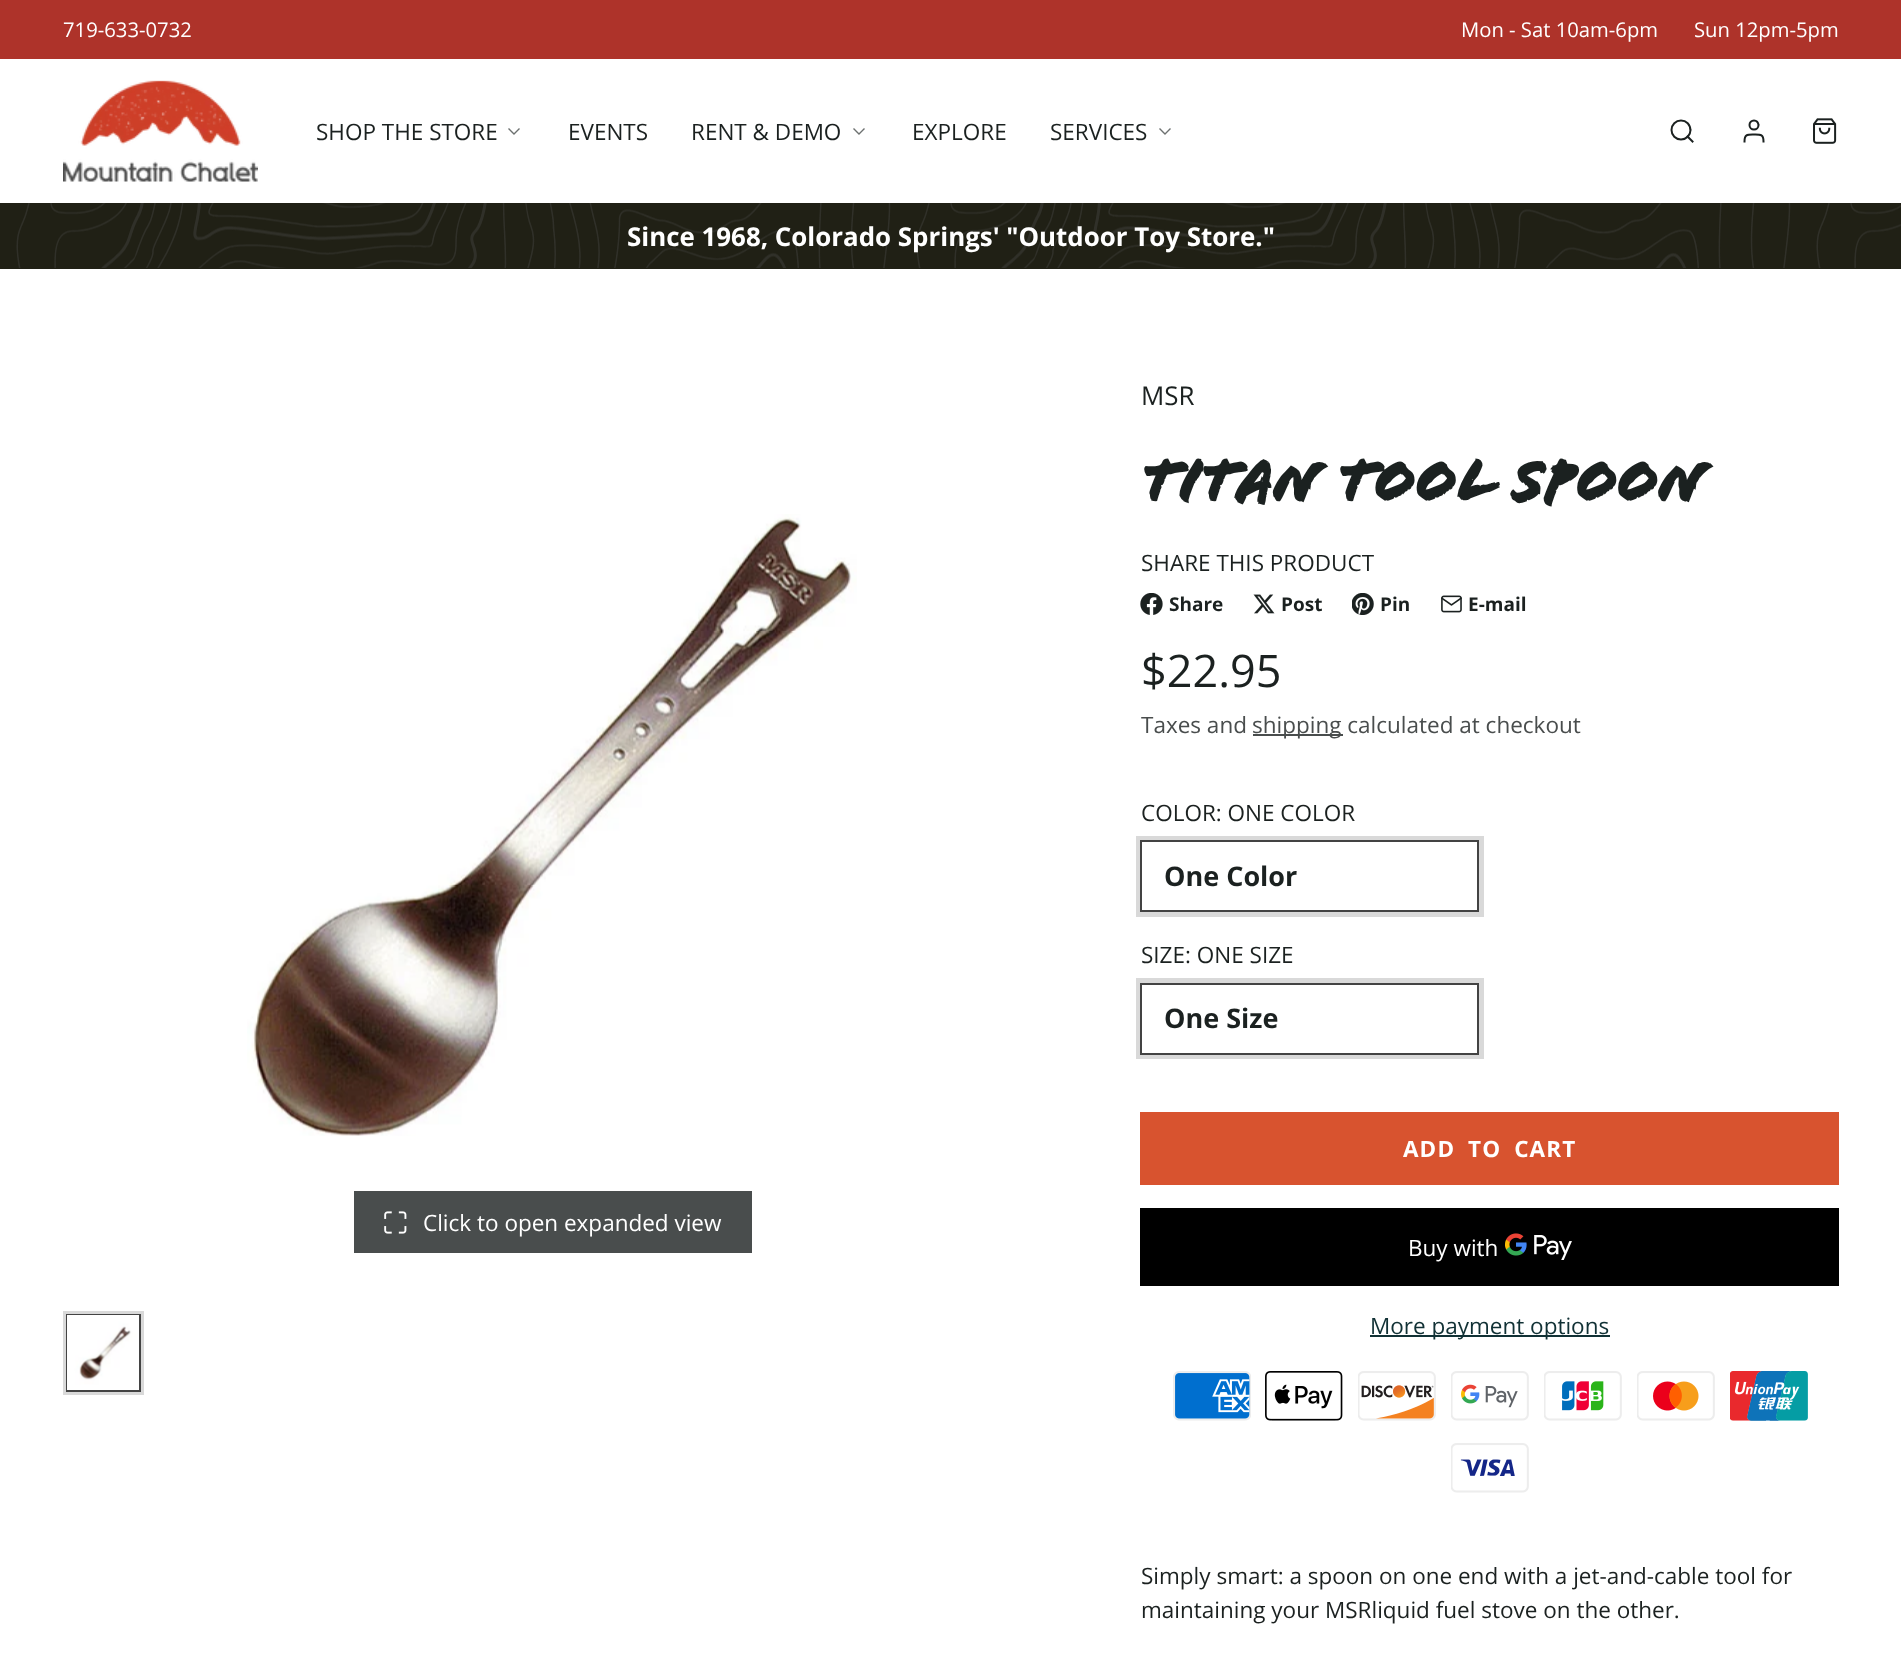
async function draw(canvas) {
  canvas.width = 1901
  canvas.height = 1674
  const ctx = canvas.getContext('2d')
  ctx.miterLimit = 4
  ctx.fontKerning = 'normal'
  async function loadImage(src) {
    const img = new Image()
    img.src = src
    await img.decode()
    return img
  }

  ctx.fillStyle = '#fff'
  ctx.fillRect(0, 0, 1901, 1674)
  ctx.fillStyle = '#ae332a'
  ctx.fillRect(0, 0, 1901, 59)
  ctx.font = '20.25px Open Sans'
  ctx.fillStyle = '#fff'
  ctx.fillText('719-633-0732', 63, 37)
  ctx.fillText('Mon - Sat 10am-6pm', 1461, 37)
  ctx.fillText('Sun 12pm-5pm', 1694, 37)
  ctx.drawImage(await loadImage('image0.png'), 63, 80, 195, 102)
  ctx.font = '22.5px Open Sans'
  ctx.fillStyle = '#1b2120'
  ctx.fillText('SHOP THE STORE', 316, 140)
  ctx.beginPath()
  ctx.moveTo(509, 129)
  ctx.lineTo(514, 134)
  ctx.lineTo(519, 129)
  ctx.strokeStyle = '#6d7170'
  ctx.lineWidth = 1.4
  ctx.lineCap = 'square'
  ctx.stroke()
  ctx.fillText('EVENTS', 568, 140)
  ctx.fillText('RENT & DEMO', 691, 140)
  ctx.beginPath()
  ctx.moveTo(854, 129)
  ctx.lineTo(859, 134)
  ctx.lineTo(864, 129)
  ctx.stroke()
  ctx.fillText('EXPLORE', 912, 140)
  ctx.fillText('SERVICES', 1050, 140)
  ctx.beginPath()
  ctx.moveTo(1160, 129)
  ctx.lineTo(1165, 134)
  ctx.lineTo(1170, 129)
  ctx.stroke()
  ctx.beginPath()
  ctx.arc(1681, 130, 9.5, 0, 2 * Math.PI)
  ctx.strokeStyle = '#1b2120'
  ctx.lineWidth = 2
  ctx.stroke()
  ctx.beginPath()
  ctx.moveTo(1692.5, 141.5)
  ctx.lineTo(1687.5, 136.5)
  ctx.stroke()
  ctx.beginPath()
  ctx.moveTo(1763.5, 141.5)
  ctx.bezierCurveTo(1763.5, 134, 1760.5, 134.5, 1754, 134.5)
  ctx.bezierCurveTo(1747.5, 134.5, 1744.5, 134, 1744.5, 141.5)
  ctx.stroke()
  ctx.beginPath()
  ctx.arc(1754, 125, 4.5, 0, 2 * Math.PI)
  ctx.stroke()
  ctx.drawImage(await loadImage('image1.png'), 1813, 118, 24, 26)
  ctx.fillStyle = '#202015'
  ctx.fillRect(0, 203, 1901, 66)
  ctx.drawImage(await loadImage('image2.png'), 16, 203, 1885, 65)
  ctx.font = 'bold 25.9px Open Sans'
  ctx.fillStyle = '#fff'
  ctx.fillText('Since 1968, Colorado Springs\' "Outdoor Toy Store."', 627, 246)
  ctx.drawImage(await loadImage('image3.png'), 247, 514, 610, 622)
  ctx.fillStyle = '#494d4d'
  ctx.fillRect(354, 1191, 398, 62)
  ctx.drawImage(await loadImage('image4.png'), 384, 1211, 23, 23)
  ctx.font = '22.5px Open Sans'
  ctx.fillStyle = '#fff'
  ctx.fillText('Click to open expanded view', 423, 1231)
  ctx.strokeStyle = '#d9d9d9'
  ctx.lineWidth = 3
  ctx.strokeRect(64.5, 1312.5, 78, 81)
  ctx.strokeStyle = '#434343'
  ctx.lineWidth = 2
  ctx.strokeRect(67, 1315, 73, 76)
  ctx.drawImage(await loadImage('image5.png'), 67, 1315, 72, 75)
  ctx.font = '25.9px Open Sans'
  ctx.fillStyle = '#1b2120'
  ctx.fillText('MSR', 1141, 405)
  ctx.font = 'bold 63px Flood'
  ctx.fillText('Titan Tool Spoon', 1141, 500)
  ctx.font = '22.5px Open Sans'
  ctx.fillText('SHARE THIS PRODUCT', 1141, 571)
  ctx.drawImage(await loadImage('image6.png'), 1140, 593, 23, 22)
  ctx.font = 'bold 19px Open Sans'
  ctx.fillText('Share', 1169, 611)
  ctx.drawImage(await loadImage('image7.png'), 1253, 594, 22, 20)
  ctx.fillText('Post', 1281, 611)
  ctx.drawImage(await loadImage('image8.png'), 1352, 593, 22, 22)
  ctx.fillText('Pin', 1380, 611)
  ctx.drawImage(await loadImage('image9.png'), 1441, 595, 21, 18)
  ctx.fillText('E-mail', 1468, 611)
  ctx.font = '45px Open Sans'
  ctx.fillText('$22.95', 1141, 687)
  ctx.font = '22.5px Open Sans'
  ctx.fillStyle = '#494d4d'
  ctx.fillText('Taxes and', 1141, 733)
  ctx.fillRect(1253, 734, 90, 2)
  ctx.fillText('shipping calculated at checkout', 1252, 733)
  ctx.fillStyle = '#1b2120'
  ctx.fillText('COLOR: ONE COLOR', 1141, 821)
  ctx.strokeStyle = '#d9d9d9'
  ctx.lineWidth = 5
  ctx.strokeRect(1138.5, 838.5, 343, 76)
  ctx.strokeStyle = '#434343'
  ctx.lineWidth = 2
  ctx.strokeRect(1141, 841, 337, 70)
  ctx.font = 'bold 27px Open Sans'
  ctx.fillText('One Color', 1164, 886)
  ctx.font = '22.5px Open Sans'
  ctx.fillText('SIZE: ONE SIZE', 1141, 963)
  ctx.strokeStyle = '#d9d9d9'
  ctx.lineWidth = 5
  ctx.strokeRect(1138.5, 980.5, 343, 76)
  ctx.strokeStyle = '#434343'
  ctx.lineWidth = 2
  ctx.strokeRect(1141, 984, 337, 70)
  ctx.font = 'bold 27px Open Sans'
  ctx.fillText('One Size', 1164, 1028)
  ctx.fillStyle = '#d8532f'
  ctx.fillRect(1140, 1112, 699, 73)
  ctx.letterSpacing = '1.1px'
  ctx.wordSpacing = '6px'
  ctx.font = 'bold 22.5px Open Sans'
  ctx.fillStyle = '#fff'
  ctx.fillText('ADD TO CART', 1403, 1157)
  ctx.fillStyle = '#000'
  ctx.fillRect(1140, 1208, 699, 78)
  ctx.letterSpacing = '0px'
  ctx.wordSpacing = '0px'
  ctx.font = '22.5px Open Sans'
  ctx.fillStyle = '#fff'
  ctx.fillText('Buy with', 1408, 1256)
  ctx.drawImage(await loadImage('image10.png'), 1505, 1233, 67, 27)
  ctx.fillStyle = '#113135'
  ctx.fillRect(1370, 1335, 240, 2)
  ctx.fillText('More payment options', 1370, 1334)
  ctx.drawImage(await loadImage('image11.png'), 1173, 1371, 78, 50)
  ctx.drawImage(await loadImage('image12.png'), 1265, 1371, 78, 50)
  ctx.drawImage(await loadImage('image13.png'), 1358, 1371, 78, 50)
  ctx.drawImage(await loadImage('image14.png'), 1451, 1371, 78, 50)
  ctx.drawImage(await loadImage('image15.png'), 1544, 1371, 78, 50)
  ctx.drawImage(await loadImage('image16.png'), 1637, 1371, 78, 50)
  ctx.drawImage(await loadImage('image17.png'), 1730, 1371, 78, 50)
  ctx.drawImage(await loadImage('image18.png'), 1451, 1443, 78, 50)
  ctx.fillStyle = '#1b2120'
  ctx.fillText('Simply smart: a spoon on one end with a jet-and-cable tool for', 1141, 1584)
  ctx.fillText('maintaining your MSRliquid fuel stove on the other.', 1141, 1618)
}

draw(document.querySelector('canvas'))
